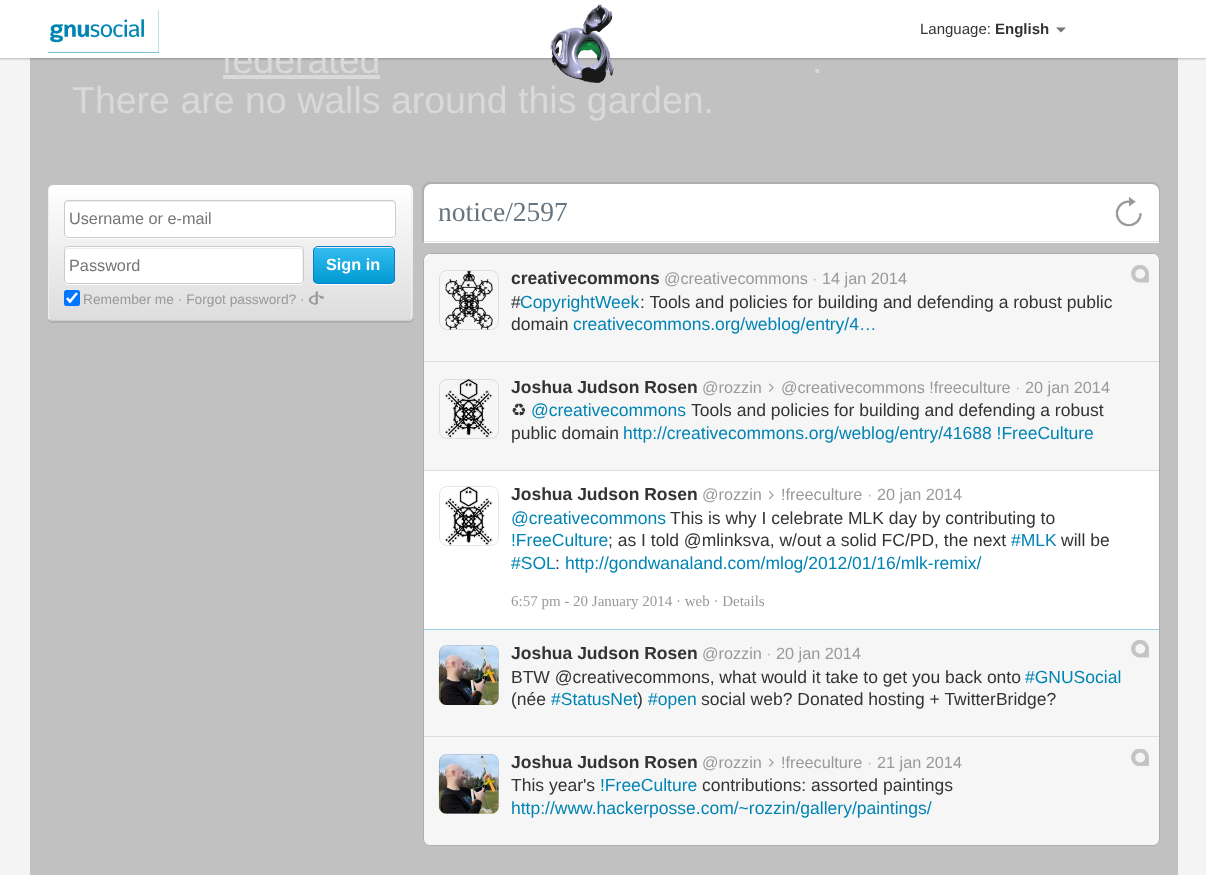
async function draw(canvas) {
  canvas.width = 1206
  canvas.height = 875
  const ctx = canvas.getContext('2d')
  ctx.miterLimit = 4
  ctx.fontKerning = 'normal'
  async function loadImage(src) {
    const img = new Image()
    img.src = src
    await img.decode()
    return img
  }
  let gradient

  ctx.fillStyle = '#f4f4f4'
  ctx.fillRect(0, 0, 1206, 875)
  ctx.fillStyle = '#c1c1c1'
  ctx.fillRect(30, 58, 1148, 817)
  ctx.fillStyle = '#00000040'
  ctx.filter = 'blur(1px)'
  ctx.beginPath()
  ctx.rect(0, 1, 1206, 58)
  ctx.fill()
  ctx.filter = 'none'
  ctx.font = '37.5px Liberation Sans'
  ctx.fillStyle = '#d9d9d9'
  ctx.fillText('federated', 222, 73)
  ctx.fillStyle = '#fff'
  ctx.fillRect(0, 0, 1206, 58)
  ctx.fillStyle = '#0084b4'
  ctx.fillRect(48, 10, 111, 43)
  ctx.drawImage(await loadImage('image0.png'), 48, 10, 111, 43)
  ctx.drawImage(await loadImage('image1.png'), 550, 4, 64, 79)
  ctx.font = '15px Liberation Sans'
  ctx.fillStyle = '#333'
  ctx.fillText('Language:', 920, 34)
  ctx.font = 'bold 15px Liberation Sans'
  ctx.fillText('English', 995, 34)
  ctx.fillStyle = '#777'
  ctx.beginPath()
  ctx.moveTo(1056, 27.5)
  ctx.lineTo(1066, 27.5)
  ctx.lineTo(1061, 32.5)
  ctx.closePath()
  ctx.fill()
  ctx.fillStyle = '#d9d9d9'
  ctx.fillRect(223, 75, 157, 4)
  ctx.font = '37.5px Liberation Sans'
  ctx.fillText('.', 812, 73)
  ctx.fillText('There are no walls around this garden.', 72, 113)
  ctx.fillStyle = '#aeaeae'
  ctx.beginPath()
  ctx.moveTo(48, 318)
  ctx.bezierCurveTo(48, 321, 50, 323, 53, 323)
  ctx.lineTo(408, 323)
  ctx.bezierCurveTo(411, 323, 413, 321, 413, 318)
  ctx.lineTo(413, 191)
  ctx.lineTo(412, 188)
  ctx.lineTo(412, 316)
  ctx.bezierCurveTo(412, 319, 410, 321, 408, 321)
  ctx.lineTo(52, 321)
  ctx.bezierCurveTo(51, 321, 49, 320, 48, 318)
  ctx.closePath()
  ctx.fill()
  ctx.save()
  ctx.beginPath()
  ctx.roundRect(48, 185, 365, 136, 5)
  ctx.clip()
  gradient = ctx.createLinearGradient(230, 185, 230, 320)
  gradient.addColorStop(0, '#fff')
  gradient.addColorStop(1, '#ddd')
  ctx.fillStyle = gradient
  ctx.beginPath()
  ctx.roundRect(48, 185, 365, 135, [5, 5, 0, 0])
  ctx.fill()
  gradient = ctx.createLinearGradient(230, 320, 230, 455)
  gradient.addColorStop(0, '#fff')
  gradient.addColorStop(1, '#ddd')
  ctx.fillStyle = gradient
  ctx.fillRect(48, 320, 365, 1)
  ctx.restore()
  ctx.fillStyle = '#eee'
  ctx.beginPath()
  ctx.moveTo(412, 190)
  ctx.bezierCurveTo(412, 187, 410, 185, 408, 185)
  ctx.bezierCurveTo(410, 185, 411, 187, 411, 190)
  ctx.lineTo(411, 316)
  ctx.lineTo(410, 319)
  ctx.lineTo(411, 320)
  ctx.lineTo(412, 317)
  ctx.closePath()
  ctx.fill()
  ctx.fillStyle = '#ccc'
  ctx.beginPath()
  ctx.moveTo(411, 320)
  ctx.bezierCurveTo(410, 320, 409, 321, 408, 321)
  ctx.lineTo(52, 321)
  ctx.bezierCurveTo(51, 321, 50, 320, 49, 320)
  ctx.lineTo(50, 319)
  ctx.lineTo(52, 320)
  ctx.lineTo(408, 320)
  ctx.lineTo(410, 319)
  ctx.closePath()
  ctx.fill()
  ctx.fillStyle = '#eee'
  ctx.beginPath()
  ctx.moveTo(52, 185)
  ctx.bezierCurveTo(50, 185, 49, 187, 49, 190)
  ctx.lineTo(49, 316)
  ctx.lineTo(50, 319)
  ctx.lineTo(49, 320)
  ctx.bezierCurveTo(48, 319, 48, 317, 48, 316)
  ctx.lineTo(48, 190)
  ctx.bezierCurveTo(48, 187, 50, 185, 52, 185)
  ctx.closePath()
  ctx.fill()
  ctx.fillStyle = '#fff'
  ctx.beginPath()
  ctx.moveTo(64, 235)
  ctx.bezierCurveTo(64, 237, 66, 239, 68, 239)
  ctx.lineTo(392, 239)
  ctx.bezierCurveTo(394, 239, 396, 237, 396, 235)
  ctx.bezierCurveTo(395, 237, 394, 238, 392, 238)
  ctx.lineTo(68, 238)
  ctx.bezierCurveTo(66, 238, 65, 237, 64, 235)
  ctx.closePath()
  ctx.fill()
  ctx.beginPath()
  ctx.roundRect(64, 200, 332, 38, 4)
  ctx.fill()
  ctx.fillStyle = '#eee'
  ctx.beginPath()
  ctx.moveTo(68, 202)
  ctx.lineTo(392, 202)
  ctx.bezierCurveTo(394, 202, 395, 204, 395, 205)
  ctx.lineTo(395, 204)
  ctx.bezierCurveTo(395, 202, 394, 201, 392, 201)
  ctx.lineTo(68, 201)
  ctx.bezierCurveTo(66, 201, 65, 202, 65, 204)
  ctx.lineTo(65, 205)
  ctx.bezierCurveTo(65, 204, 66, 202, 68, 202)
  ctx.closePath()
  ctx.fill()
  ctx.beginPath()
  ctx.roundRect(64.5, 200.5, 331, 37, 3.5)
  ctx.strokeStyle = '#ccc'
  ctx.stroke()
  ctx.font = '16.25px Liberation Sans'
  ctx.fillStyle = '#757575'
  ctx.fillText('Username or e-mail', 69, 224)
  ctx.fillStyle = '#fff'
  ctx.beginPath()
  ctx.moveTo(64, 281)
  ctx.bezierCurveTo(64, 283, 66, 285, 68, 285)
  ctx.lineTo(300, 285)
  ctx.bezierCurveTo(302, 285, 304, 283, 304, 281)
  ctx.lineTo(304, 251)
  ctx.lineTo(304, 280)
  ctx.bezierCurveTo(304, 282, 302, 284, 300, 284)
  ctx.lineTo(68, 284)
  ctx.bezierCurveTo(66, 284, 65, 283, 64, 281)
  ctx.closePath()
  ctx.fill()
  ctx.beginPath()
  ctx.roundRect(64, 246, 240, 38, 4)
  ctx.fill()
  ctx.fillStyle = '#eee'
  ctx.beginPath()
  ctx.moveTo(68, 249)
  ctx.lineTo(300, 249)
  ctx.bezierCurveTo(301, 249, 302, 250, 302, 251)
  ctx.lineTo(302, 283)
  ctx.bezierCurveTo(302, 282, 303, 281, 303, 280)
  ctx.lineTo(303, 250)
  ctx.bezierCurveTo(303, 249, 302, 248, 300, 248)
  ctx.lineTo(68, 248)
  ctx.bezierCurveTo(66, 248, 65, 249, 65, 250)
  ctx.lineTo(65, 251)
  ctx.bezierCurveTo(65, 250, 66, 249, 68, 249)
  ctx.closePath()
  ctx.fill()
  ctx.beginPath()
  ctx.roundRect(64.5, 246.5, 239, 37, 3.5)
  ctx.stroke()
  ctx.fillStyle = '#757575'
  ctx.fillText('Password', 69, 271)
  ctx.fillStyle = '#fff'
  ctx.beginPath()
  ctx.moveTo(313, 281)
  ctx.bezierCurveTo(314, 283, 316, 285, 318, 285)
  ctx.lineTo(390, 285)
  ctx.bezierCurveTo(393, 285, 395, 283, 395, 280)
  ctx.lineTo(395, 279)
  ctx.bezierCurveTo(395, 282, 393, 284, 390, 284)
  ctx.lineTo(318, 284)
  ctx.bezierCurveTo(316, 284, 314, 283, 313, 281)
  ctx.closePath()
  ctx.fill()
  ctx.save()
  ctx.beginPath()
  ctx.roundRect(313, 246, 82, 38, 5)
  ctx.clip()
  gradient = ctx.createLinearGradient(354, 248, 354, 283)
  gradient.addColorStop(0, '#33bcef')
  gradient.addColorStop(1, '#019ad2')
  ctx.fillStyle = gradient
  ctx.fillRect(313, 248, 82, 35)
  ctx.restore()
  ctx.beginPath()
  ctx.roundRect(313.5, 246.5, 81, 37, 4.5)
  ctx.strokeStyle = '#057ed0'
  ctx.stroke()
  ctx.font = 'bold 16.25px Liberation Sans'
  ctx.fillText('Sign in', 326, 270)
  ctx.fillStyle = '#0075ff'
  ctx.beginPath()
  ctx.roundRect(64, 290, 16, 16, 2.5)
  ctx.fill()
  ctx.beginPath()
  ctx.moveTo(67, 298)
  ctx.lineTo(70, 301.5)
  ctx.lineTo(77, 293)
  ctx.strokeStyle = '#fff'
  ctx.lineWidth = 2.6
  ctx.stroke()
  ctx.font = '13.75px Liberation Sans'
  ctx.fillStyle = '#999'
  ctx.fillText('Remember me · Forgot password? ·', 83, 304)
  ctx.drawImage(await loadImage('image2.png'), 308, 291, 16, 14)
  ctx.fillStyle = '#aeaeae'
  ctx.beginPath()
  ctx.moveTo(430, 182)
  ctx.lineTo(1152, 182)
  ctx.bezierCurveTo(1157, 182, 1160, 186, 1160, 190)
  ctx.lineTo(1160, 242)
  ctx.lineTo(422, 242)
  ctx.lineTo(422, 190)
  ctx.bezierCurveTo(422, 186, 426, 182, 430, 182)
  ctx.closePath()
  ctx.moveTo(430, 184)
  ctx.lineTo(1152, 184)
  ctx.bezierCurveTo(1156, 184, 1159, 187, 1159, 190)
  ctx.lineTo(1159, 242)
  ctx.lineTo(424, 242)
  ctx.lineTo(424, 190)
  ctx.bezierCurveTo(424, 187, 427, 184, 430, 184)
  ctx.closePath()
  ctx.fill('evenodd')
  ctx.fillStyle = '#fff'
  ctx.beginPath()
  ctx.roundRect(424, 184, 735, 59, [8, 8, 0, 0])
  ctx.fill()
  ctx.fillStyle = '#e8e8e8'
  ctx.fillRect(424, 241, 735, 1)
  ctx.font = '27.5px Liberation Serif'
  ctx.fillStyle = '#66757f'
  ctx.fillText('notice/2597', 438, 221)
  ctx.drawImage(await loadImage('image3.png'), 1115, 197, 27, 30)
  ctx.fillStyle = '#fff'
  ctx.beginPath()
  ctx.roundRect(424, 254, 735, 591, 6)
  ctx.fill()
  ctx.beginPath()
  ctx.roundRect(423.5, 253.5, 736, 592, 7.5)
  ctx.strokeStyle = '#0000001a'
  ctx.lineWidth = 1
  ctx.stroke()
  ctx.fillStyle = '#f6f6f6'
  ctx.beginPath()
  ctx.moveTo(431, 255)
  ctx.lineTo(1151, 255)
  ctx.bezierCurveTo(1155, 255, 1159, 258, 1159, 261)
  ctx.lineTo(1159, 362)
  ctx.lineTo(424, 362)
  ctx.lineTo(424, 261)
  ctx.bezierCurveTo(424, 258, 427, 255, 431, 255)
  ctx.closePath()
  ctx.fill()
  ctx.fillRect(428, 254, 727, 1)
  ctx.beginPath()
  ctx.roundRect(424, 255, 735, 108, [8, 8, 0, 0])
  ctx.fill()
  ctx.fillStyle = '#ddd'
  ctx.fillRect(424, 361, 735, 1)
  ctx.drawImage(await loadImage('image4.png'), 445, 270, 48, 60)
  ctx.beginPath()
  ctx.roundRect(439.5, 270.5, 59, 59, 7.5)
  ctx.stroke()
  ctx.font = 'bold 17.5px Liberation Sans'
  ctx.fillStyle = '#333'
  ctx.fillText('creativecommons', 511, 284)
  ctx.font = '16.25px Liberation Sans'
  ctx.fillStyle = '#999'
  ctx.fillText('@creativecommons', 664, 284)
  ctx.fillStyle = '#bbb'
  ctx.fillText('·', 812, 284)
  ctx.fillStyle = '#999'
  ctx.fillText('14 jan 2014', 822, 284)
  ctx.font = '17.5px Liberation Sans'
  ctx.fillStyle = '#333'
  ctx.fillText('#', 511, 308)
  ctx.fillStyle = '#0084b4'
  ctx.fillText('CopyrightWeek', 520, 308)
  ctx.fillStyle = '#333'
  ctx.fillText(': Tools and policies for building and defending a robust public', 640, 308)
  ctx.fillText('domain', 511, 330)
  ctx.fillStyle = '#0084b4'
  ctx.fillText('creativecommons.org/weblog/entry/4…', 573, 330)
  ctx.drawImage(await loadImage('image5.png'), 1131, 265, 18, 18)
  ctx.fillStyle = '#f6f6f6'
  ctx.fillRect(424, 363, 735, 107)
  ctx.fillStyle = '#ddd'
  ctx.fillRect(424, 470, 735, 1)
  ctx.drawImage(await loadImage('image6.png'), 445, 379, 48, 59)
  ctx.beginPath()
  ctx.roundRect(439.5, 379.5, 59, 59, 7.5)
  ctx.stroke()
  ctx.font = 'bold 17.5px Liberation Sans'
  ctx.fillStyle = '#333'
  ctx.fillText('Joshua Judson Rosen', 511, 393)
  ctx.font = '16.25px Liberation Sans'
  ctx.fillStyle = '#999'
  ctx.fillText('@rozzin', 702, 393)
  ctx.drawImage(await loadImage('image7.png'), 769, 383, 5, 9)
  ctx.fillText('@creativecommons !freeculture', 781, 393)
  ctx.fillStyle = '#bbb'
  ctx.fillText('·', 1015, 393)
  ctx.fillStyle = '#999'
  ctx.fillText('20 jan 2014', 1025, 393)
  ctx.font = '17.5px DejaVu Sans'
  ctx.fillStyle = '#333'
  ctx.fillText('♻', 511, 416)
  ctx.font = '17.5px Liberation Sans'
  ctx.fillStyle = '#0084b4'
  ctx.fillText('@creativecommons', 531, 416)
  ctx.fillStyle = '#333'
  ctx.fillText('Tools and policies for building and defending a robust', 691, 416)
  ctx.fillText('public domain', 511, 439)
  ctx.fillStyle = '#0084b4'
  ctx.fillText('http://creativecommons.org/weblog/entry/41688 !FreeCulture', 623, 439)
  ctx.drawImage(await loadImage('image8.png'), 445, 486, 48, 60)
  ctx.beginPath()
  ctx.roundRect(439.5, 486.5, 59, 59, 7.5)
  ctx.stroke()
  ctx.font = 'bold 17.5px Liberation Sans'
  ctx.fillStyle = '#333'
  ctx.fillText('Joshua Judson Rosen', 511, 500)
  ctx.font = '16.25px Liberation Sans'
  ctx.fillStyle = '#999'
  ctx.fillText('@rozzin', 702, 500)
  ctx.drawImage(await loadImage('image9.png'), 768, 491, 6, 9)
  ctx.fillText('!freeculture', 781, 500)
  ctx.fillStyle = '#bbb'
  ctx.fillText('·', 867, 500)
  ctx.fillStyle = '#999'
  ctx.fillText('20 jan 2014', 877, 500)
  ctx.font = '17.5px Liberation Sans'
  ctx.fillStyle = '#0084b4'
  ctx.fillText('@creativecommons', 511, 524)
  ctx.fillStyle = '#333'
  ctx.fillText('This is why I celebrate MLK day by contributing to', 670, 524)
  ctx.fillStyle = '#0084b4'
  ctx.fillText('!FreeCulture', 511, 546)
  ctx.fillStyle = '#333'
  ctx.fillText('; as I told @mlinksva, w/out a solid FC/PD, the next', 608, 546)
  ctx.fillStyle = '#0084b4'
  ctx.fillText('#MLK', 1011, 546)
  ctx.fillStyle = '#333'
  ctx.fillText('will be', 1061, 546)
  ctx.fillStyle = '#0084b4'
  ctx.fillText('#SOL', 511, 569)
  ctx.fillStyle = '#333'
  ctx.fillText(':', 555, 569)
  ctx.fillStyle = '#0084b4'
  ctx.fillText('http://gondwanaland.com/mlog/2012/01/16/mlk-remix/', 565, 569)
  ctx.font = '15px Liberation Serif'
  ctx.fillStyle = '#999'
  ctx.fillText('6:57 pm - 20 January 2014 · web · Details', 511, 606)
  ctx.fillStyle = '#f6f6f6'
  ctx.fillRect(424, 630, 735, 109)
  ctx.fillStyle = '#9bcee0'
  ctx.fillRect(424, 629, 735, 1)
  ctx.fillStyle = '#ddd'
  ctx.fillRect(424, 736, 735, 1)
  ctx.drawImage(await loadImage('image10.png'), 438, 645, 61, 60)
  ctx.beginPath()
  ctx.roundRect(439.5, 645.5, 59, 59, 7.5)
  ctx.stroke()
  ctx.font = 'bold 17.5px Liberation Sans'
  ctx.fillStyle = '#333'
  ctx.fillText('Joshua Judson Rosen', 511, 659)
  ctx.font = '16.25px Liberation Sans'
  ctx.fillStyle = '#999'
  ctx.fillText('@rozzin', 702, 659)
  ctx.fillStyle = '#bbb'
  ctx.fillText('·', 766, 659)
  ctx.fillStyle = '#999'
  ctx.fillText('20 jan 2014', 776, 659)
  ctx.font = '17.5px Liberation Sans'
  ctx.fillStyle = '#333'
  ctx.fillText('BTW @creativecommons, what would it take to get you back onto', 511, 683)
  ctx.fillStyle = '#0084b4'
  ctx.fillText('#GNUSocial', 1025, 683)
  ctx.fillStyle = '#333'
  ctx.fillText('(née', 511, 705)
  ctx.fillStyle = '#0084b4'
  ctx.fillText('#StatusNet', 551, 705)
  ctx.fillStyle = '#333'
  ctx.fillText(')', 637, 705)
  ctx.fillStyle = '#0084b4'
  ctx.fillText('#open', 648, 705)
  ctx.fillStyle = '#333'
  ctx.fillText('social web? Donated hosting + TwitterBridge?', 701, 705)
  ctx.drawImage(await loadImage('image5.png'), 1131, 640, 18, 18)
  ctx.fillStyle = '#f6f6f6'
  ctx.beginPath()
  ctx.roundRect(424, 739, 735, 106, [0, 0, 8, 8])
  ctx.fill()
  ctx.drawImage(await loadImage('image11.png'), 438, 754, 61, 60)
  ctx.beginPath()
  ctx.roundRect(439.5, 754.5, 59, 59, 7.5)
  ctx.stroke()
  ctx.font = 'bold 17.5px Liberation Sans'
  ctx.fillStyle = '#333'
  ctx.fillText('Joshua Judson Rosen', 511, 768)
  ctx.font = '16.25px Liberation Sans'
  ctx.fillStyle = '#999'
  ctx.fillText('@rozzin', 702, 768)
  ctx.drawImage(await loadImage('image7.png'), 769, 758, 5, 9)
  ctx.fillText('!freeculture', 781, 768)
  ctx.fillStyle = '#bbb'
  ctx.fillText('·', 867, 768)
  ctx.fillStyle = '#999'
  ctx.fillText('21 jan 2014', 877, 768)
  ctx.font = '17.5px Liberation Sans'
  ctx.fillStyle = '#333'
  ctx.fillText('This year\'s', 511, 791)
  ctx.fillStyle = '#0084b4'
  ctx.fillText('!FreeCulture', 600, 791)
  ctx.fillStyle = '#333'
  ctx.fillText('contributions: assorted paintings', 702, 791)
  ctx.fillStyle = '#0084b4'
  ctx.fillText('http://www.hackerposse.com/~rozzin/gallery/paintings/', 511, 814)
  ctx.drawImage(await loadImage('image12.png'), 1131, 749, 18, 17)
}

draw(document.querySelector('canvas'))
